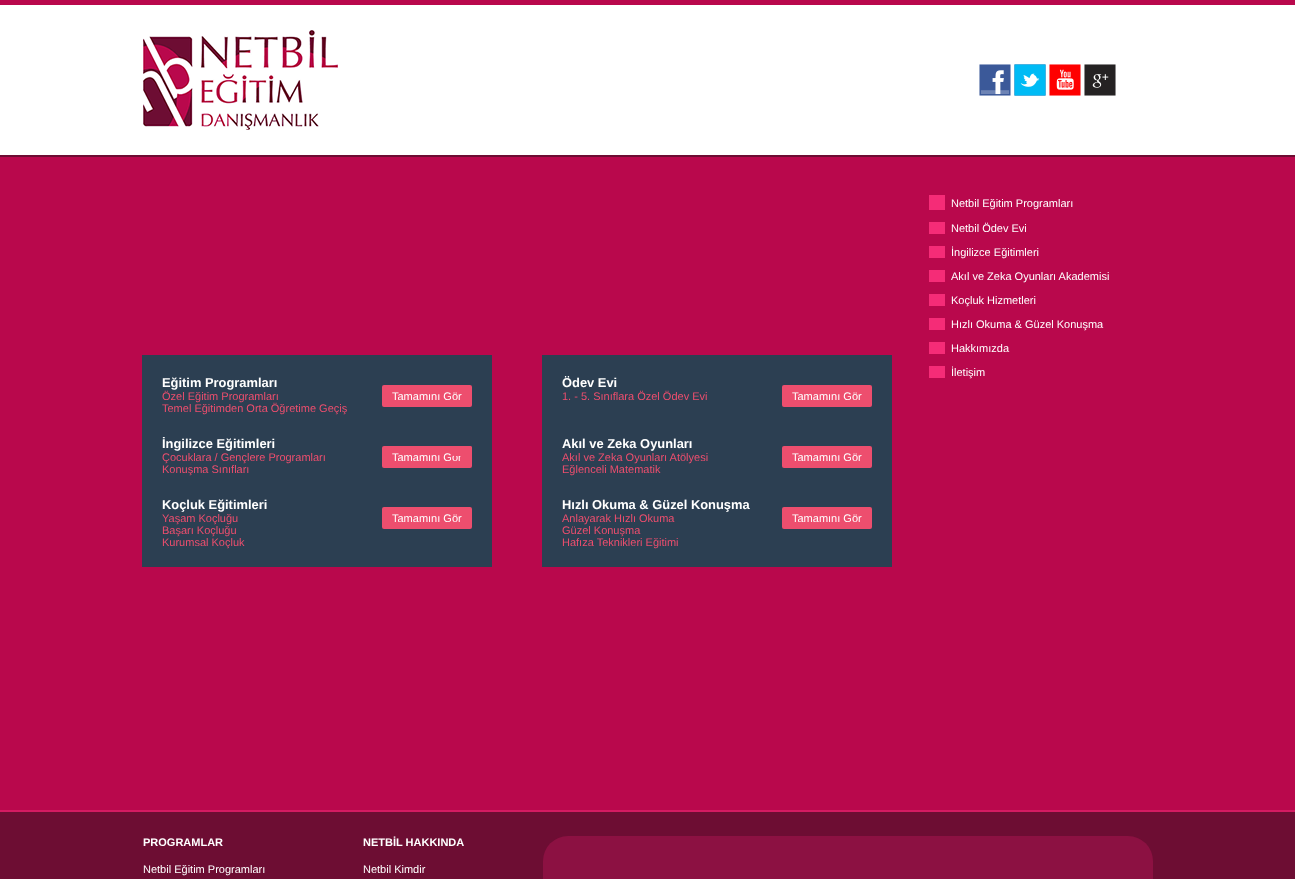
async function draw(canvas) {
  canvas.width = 1295
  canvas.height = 879
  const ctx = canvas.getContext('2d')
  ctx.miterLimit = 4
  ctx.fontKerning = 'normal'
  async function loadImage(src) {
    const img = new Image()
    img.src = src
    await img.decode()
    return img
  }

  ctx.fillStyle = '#b9084c'
  ctx.fillRect(0, 0, 1295, 879)
  ctx.fillStyle = '#fff'
  ctx.fillRect(0, 5, 1295, 150)
  ctx.drawImage(await loadImage('image0.png'), 143, 30, 195, 100)
  ctx.drawImage(await loadImage('image1.png'), 979, 64, 32, 32)
  ctx.drawImage(await loadImage('image2.png'), 1014, 64, 32, 32)
  ctx.drawImage(await loadImage('image3.png'), 1049, 64, 32, 32)
  ctx.drawImage(await loadImage('image4.png'), 1084, 64, 32, 32)
  ctx.fillStyle = '#6d0d33'
  ctx.fillRect(0, 155, 1295, 2)
  ctx.fillStyle = '#f52c77'
  ctx.fillRect(929, 195, 16, 15)
  ctx.font = '11px Liberation Sans'
  ctx.fillStyle = '#fff'
  ctx.fillText('Netbil Eğitim Programları', 951, 207)
  ctx.fillStyle = '#f52c77'
  ctx.fillRect(929, 222, 16, 12)
  ctx.fillStyle = '#fff'
  ctx.fillText('Netbil Ödev Evi', 951, 232)
  ctx.fillStyle = '#f52c77'
  ctx.fillRect(929, 246, 16, 12)
  ctx.fillStyle = '#fff'
  ctx.fillText('İngilizce Eğitimleri', 951, 256)
  ctx.fillStyle = '#f52c77'
  ctx.fillRect(929, 270, 16, 12)
  ctx.fillStyle = '#fff'
  ctx.fillText('Akıl ve Zeka Oyunları Akademisi', 951, 280)
  ctx.fillStyle = '#f52c77'
  ctx.fillRect(929, 294, 16, 12)
  ctx.fillStyle = '#fff'
  ctx.fillText('Koçluk Hizmetleri', 951, 304)
  ctx.fillStyle = '#f52c77'
  ctx.fillRect(929, 318, 16, 12)
  ctx.fillStyle = '#fff'
  ctx.fillText('Hızlı Okuma & Güzel Konuşma', 951, 328)
  ctx.fillStyle = '#f52c77'
  ctx.fillRect(929, 342, 16, 12)
  ctx.fillStyle = '#fff'
  ctx.fillText('Hakkımızda', 951, 352)
  ctx.fillStyle = '#f52c77'
  ctx.fillRect(929, 366, 16, 12)
  ctx.fillStyle = '#fff'
  ctx.fillText('İletişim', 951, 376)
  ctx.fillStyle = '#2c3f52'
  ctx.fillRect(142, 355, 350, 212)
  ctx.font = 'bold 12.9px Liberation Sans'
  ctx.fillStyle = '#fff'
  ctx.fillText('Eğitim Programları', 162, 387)
  ctx.font = '11px Liberation Sans'
  ctx.fillStyle = '#ed4e6e'
  ctx.fillText('Özel Eğitim Programları', 162, 400)
  ctx.beginPath()
  ctx.roundRect(382, 385, 90, 22, 2)
  ctx.fill()
  ctx.fillStyle = '#fff'
  ctx.fillText('Tamamını Gör', 392, 400)
  ctx.fillStyle = '#ed4e6e'
  ctx.fillText('Temel Eğitimden Orta Öğretime Geçiş', 162, 412)
  ctx.fillStyle = '#2c3f52'
  ctx.fillRect(542, 355, 350, 212)
  ctx.font = 'bold 12.9px Liberation Sans'
  ctx.fillStyle = '#fff'
  ctx.fillText('Ödev Evi', 562, 387)
  ctx.font = '11px Liberation Sans'
  ctx.fillStyle = '#ed4e6e'
  ctx.fillText('1. - 5. Sınıflara Özel Ödev Evi', 562, 400)
  ctx.beginPath()
  ctx.roundRect(782, 385, 90, 22, 2)
  ctx.fill()
  ctx.fillStyle = '#fff'
  ctx.fillText('Tamamını Gör', 792, 400)
  ctx.font = 'bold 12.9px Liberation Sans'
  ctx.fillText('İngilizce Eğitimleri', 162, 448)
  ctx.fillStyle = '#ed4e6e'
  ctx.beginPath()
  ctx.roundRect(382, 446, 90, 22, 2)
  ctx.fill()
  ctx.font = '11px Liberation Sans'
  ctx.fillStyle = '#fff'
  ctx.fillText('Tamamını Gör', 392, 461)
  ctx.fillStyle = '#ed4e6e'
  ctx.beginPath()
  ctx.roundRect(452, 446, 20, 10, 2)
  ctx.fill()
  ctx.fillText('Çocuklara / Gençlere Programları', 162, 461)
  ctx.fillText('Konuşma Sınıfları', 162, 473)
  ctx.font = 'bold 12.9px Liberation Sans'
  ctx.fillStyle = '#fff'
  ctx.fillText('Akıl ve Zeka Oyunları', 562, 448)
  ctx.font = '11px Liberation Sans'
  ctx.fillStyle = '#ed4e6e'
  ctx.fillText('Akıl ve Zeka Oyunları Atölyesi', 562, 461)
  ctx.beginPath()
  ctx.roundRect(782, 446, 90, 22, 2)
  ctx.fill()
  ctx.fillStyle = '#fff'
  ctx.fillText('Tamamını Gör', 792, 461)
  ctx.fillStyle = '#ed4e6e'
  ctx.fillText('Eğlenceli Matematik', 562, 473)
  ctx.font = 'bold 12.9px Liberation Sans'
  ctx.fillStyle = '#fff'
  ctx.fillText('Koçluk Eğitimleri', 162, 509)
  ctx.font = '11px Liberation Sans'
  ctx.fillStyle = '#ed4e6e'
  ctx.fillText('Yaşam Koçluğu', 162, 522)
  ctx.beginPath()
  ctx.roundRect(382, 507, 90, 22, 2)
  ctx.fill()
  ctx.fillStyle = '#fff'
  ctx.fillText('Tamamını Gör', 392, 522)
  ctx.fillStyle = '#ed4e6e'
  ctx.fillText('Başarı Koçluğu', 162, 534)
  ctx.fillText('Kurumsal Koçluk', 162, 546)
  ctx.font = 'bold 12.9px Liberation Sans'
  ctx.fillStyle = '#fff'
  ctx.fillText('Hızlı Okuma & Güzel Konuşma', 562, 509)
  ctx.font = '11px Liberation Sans'
  ctx.fillStyle = '#ed4e6e'
  ctx.fillText('Anlayarak Hızlı Okuma', 562, 522)
  ctx.beginPath()
  ctx.roundRect(782, 507, 90, 22, 2)
  ctx.fill()
  ctx.fillStyle = '#fff'
  ctx.fillText('Tamamını Gör', 792, 522)
  ctx.fillStyle = '#ed4e6e'
  ctx.fillText('Güzel Konuşma', 562, 534)
  ctx.fillText('Hafıza Teknikleri Eğitimi', 562, 546)
  ctx.fillStyle = '#d41b62'
  ctx.fillRect(0, 810, 1295, 2)
  ctx.fillStyle = '#6d0d33'
  ctx.fillRect(0, 812, 1295, 67)
  ctx.font = 'bold 11px Liberation Sans'
  ctx.fillStyle = '#fff'
  ctx.fillText('PROGRAMLAR', 143, 846)
  ctx.font = '11px Liberation Sans'
  ctx.fillText('Netbil Eğitim Programları', 143, 873)
  ctx.font = 'bold 11px Liberation Sans'
  ctx.fillText('NETBİL HAKKINDA', 363, 846)
  ctx.font = '11px Liberation Sans'
  ctx.fillText('Netbil Kimdir', 363, 873)
  ctx.fillStyle = '#8c1142'
  ctx.beginPath()
  ctx.roundRect(543, 836, 610, 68, 25)
  ctx.fill()
}

draw(document.querySelector('canvas'))
